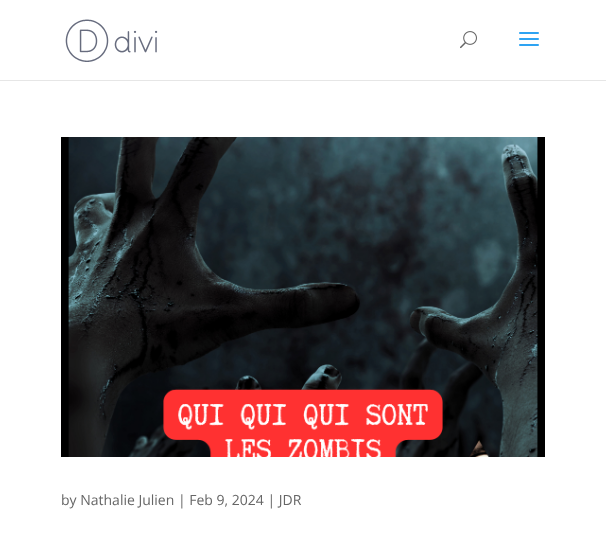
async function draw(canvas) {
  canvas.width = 606
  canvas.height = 545
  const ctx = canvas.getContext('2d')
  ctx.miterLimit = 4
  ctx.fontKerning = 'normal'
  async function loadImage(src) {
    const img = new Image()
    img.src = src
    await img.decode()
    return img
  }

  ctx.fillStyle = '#fff'
  ctx.fillRect(0, 0, 606, 545)
  ctx.fillStyle = '#e6e6e6'
  ctx.fillRect(0, 80, 606, 1)
  ctx.drawImage(await loadImage('image0.png'), 65, 19, 93, 43)
  ctx.drawImage(await loadImage('image1.png'), 460, 31, 17, 18)
  ctx.drawImage(await loadImage('image2.png'), 519, 32, 20, 14)
  ctx.drawImage(await loadImage('image3.png'), 61, 137, 484, 320)
  ctx.font = '14px Open Sans'
  ctx.fillStyle = '#666'
  ctx.fillText('by Nathalie Julien | Feb 9, 2024 | JDR', 61, 505)
}

draw(document.querySelector('canvas'))
